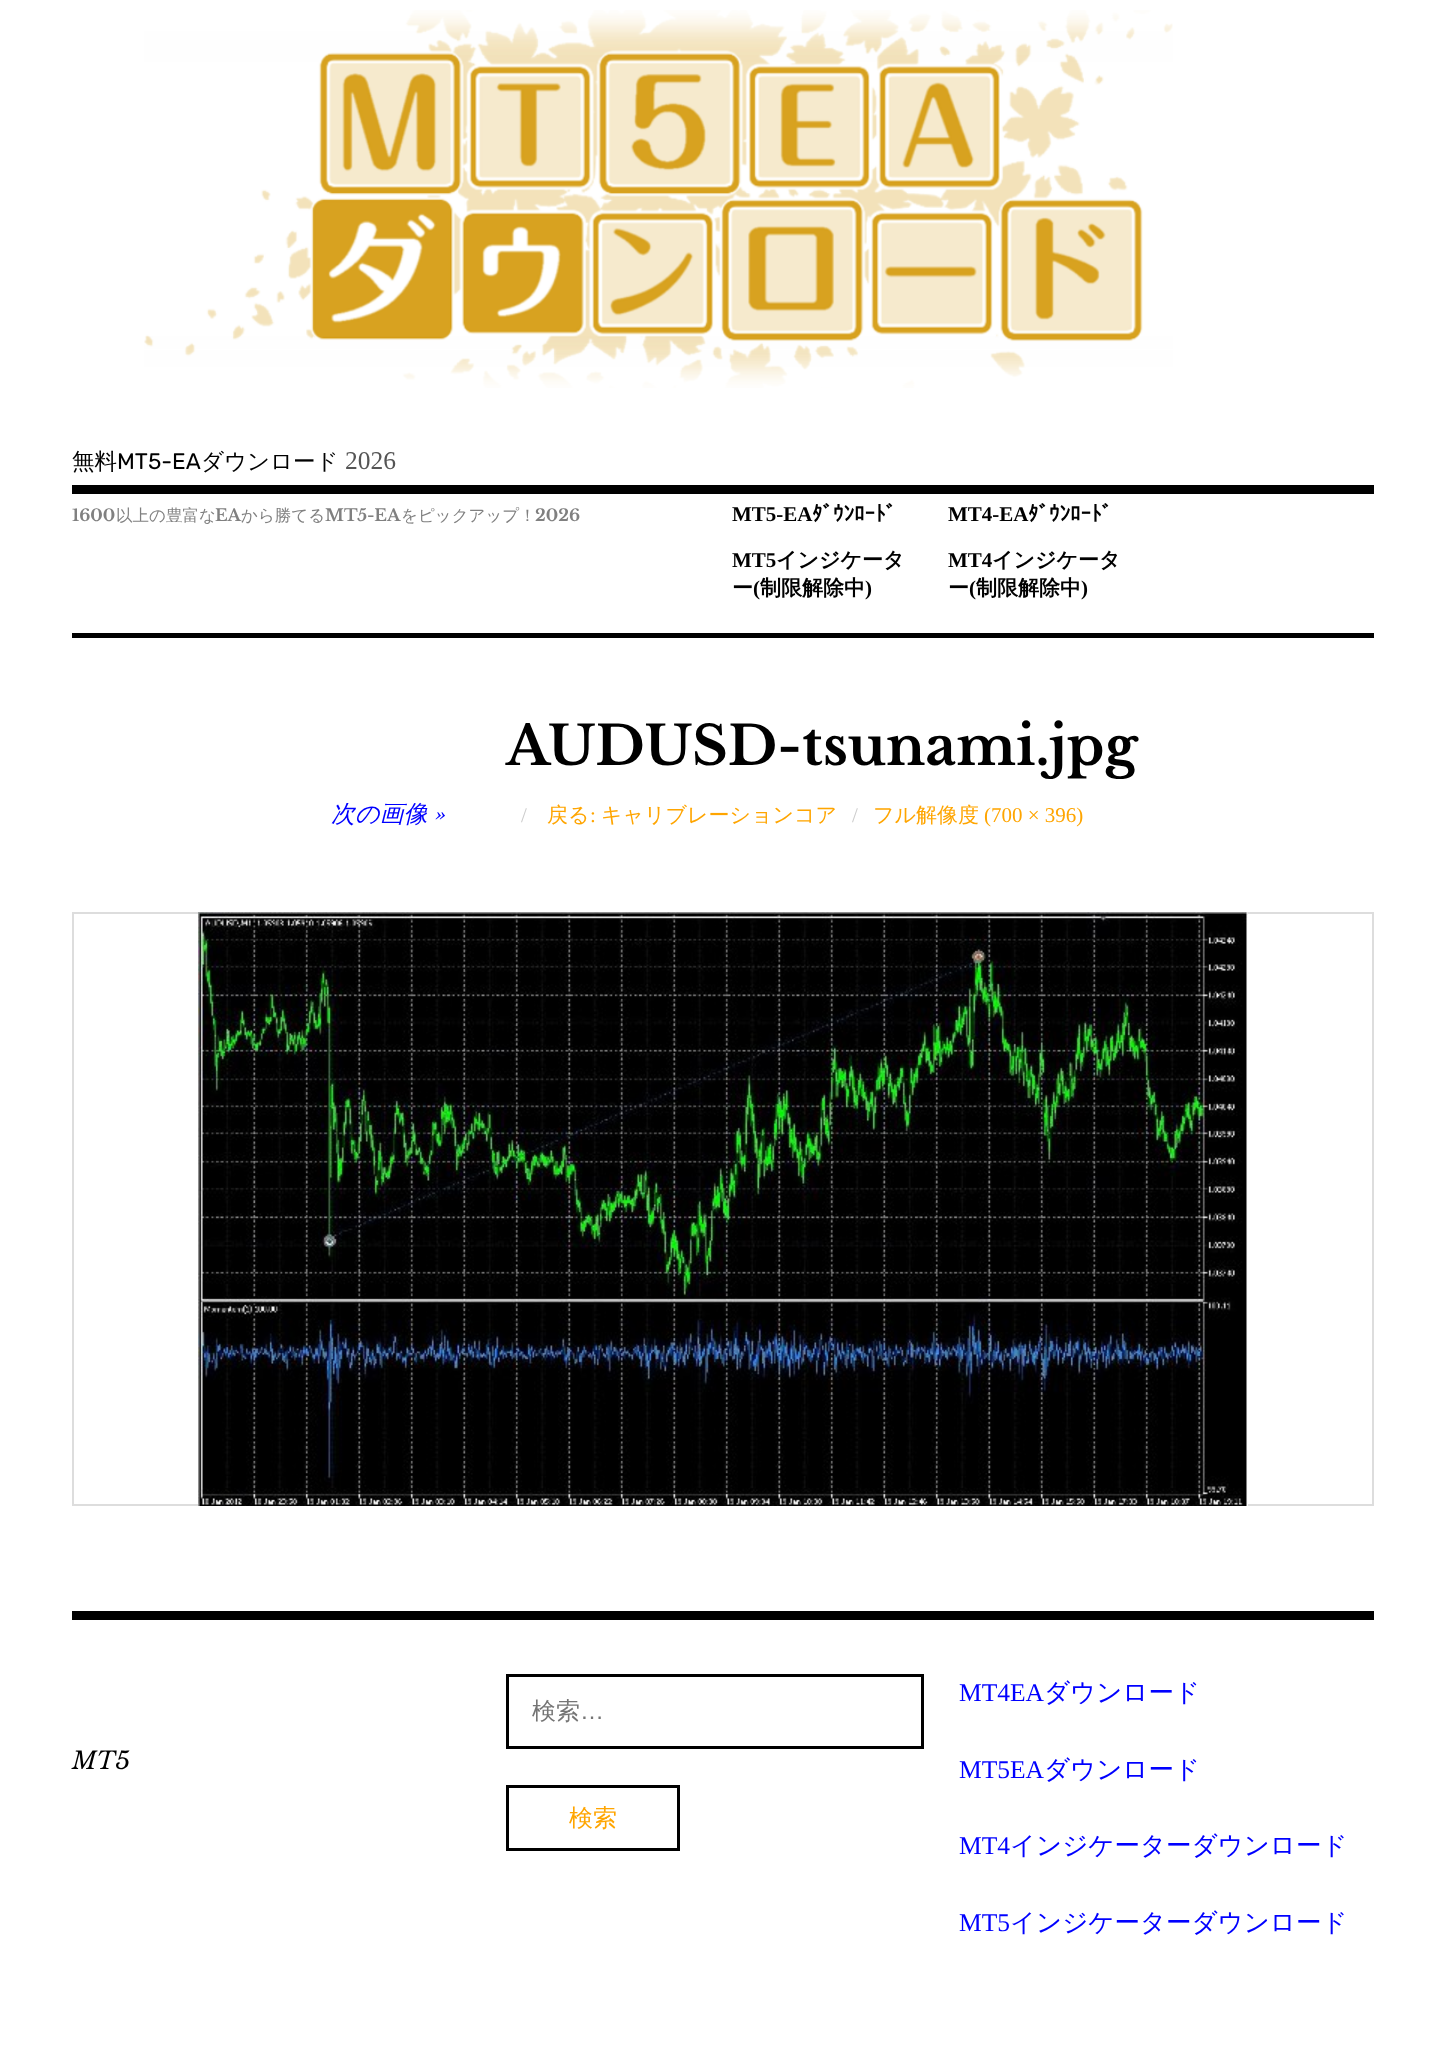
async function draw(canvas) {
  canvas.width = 1445
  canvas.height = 2065
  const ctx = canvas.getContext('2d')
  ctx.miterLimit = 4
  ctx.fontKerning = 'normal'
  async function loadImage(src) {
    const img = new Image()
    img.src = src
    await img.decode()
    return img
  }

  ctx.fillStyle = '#fff'
  ctx.fillRect(0, 0, 1445, 2065)
  ctx.drawImage(await loadImage('image0.png'), 144, 10, 1029, 378)
  ctx.fillStyle = '#000'
  ctx.fillRect(72, 485, 1302, 9)
  ctx.font = '500 22.5px WenQuanYi Zen Hei'
  ctx.fillText('無料', 72, 469)
  ctx.font = '22.5px Rubik'
  ctx.fillText('MT5-EA', 117, 469)
  ctx.font = '500 22.5px WenQuanYi Zen Hei'
  ctx.fillText('ダウンロード', 201, 469)
  ctx.font = '25.5px Liberation Serif'
  ctx.fillStyle = '#555'
  ctx.fillText('2026', 345, 469)
  ctx.font = 'bold 16.5px Libre Baskerville'
  ctx.fillStyle = '#808080'
  ctx.fillText('1600', 72, 521)
  ctx.font = '500 16.5px WenQuanYi Zen Hei'
  ctx.fillText('以上の豊富な', 116, 521)
  ctx.font = 'bold 16.5px Libre Baskerville'
  ctx.fillText('EA', 215, 521)
  ctx.font = '500 16.5px WenQuanYi Zen Hei'
  ctx.fillText('から勝てる', 241, 521)
  ctx.font = 'bold 16.5px Libre Baskerville'
  ctx.fillText('MT5-EA', 325, 521)
  ctx.font = '500 16.5px WenQuanYi Zen Hei'
  ctx.fillText('をピックアップ！', 401, 521)
  ctx.font = 'bold 16.5px Libre Baskerville'
  ctx.fillText('2026', 535, 521)
  ctx.font = 'bold 21px Liberation Serif'
  ctx.fillStyle = '#000'
  ctx.fillText('MT5-EA', 732, 521)
  ctx.font = 'bold 21px IPAPGothic'
  ctx.fillText('ﾀﾞｳﾝﾛｰﾄﾞ', 812, 521)
  ctx.font = 'bold 21px Liberation Serif'
  ctx.fillText('MT5', 732, 567)
  ctx.font = 'bold 21px WenQuanYi Zen Hei'
  ctx.fillText('インジケータ', 776, 567)
  ctx.fillText('ー', 732, 595)
  ctx.font = 'bold 21px Liberation Serif'
  ctx.fillText('(', 753, 595)
  ctx.font = 'bold 21px WenQuanYi Zen Hei'
  ctx.fillText('制限解除中', 760, 595)
  ctx.font = 'bold 21px Liberation Serif'
  ctx.fillText(')', 865, 595)
  ctx.fillText('MT4-EA', 948, 521)
  ctx.font = 'bold 21px IPAPGothic'
  ctx.fillText('ﾀﾞｳﾝﾛｰﾄﾞ', 1028, 521)
  ctx.font = 'bold 21px Liberation Serif'
  ctx.fillText('MT4', 948, 567)
  ctx.font = 'bold 21px WenQuanYi Zen Hei'
  ctx.fillText('インジケータ', 992, 567)
  ctx.fillText('ー', 948, 595)
  ctx.font = 'bold 21px Liberation Serif'
  ctx.fillText('(', 969, 595)
  ctx.font = 'bold 21px WenQuanYi Zen Hei'
  ctx.fillText('制限解除中', 976, 595)
  ctx.font = 'bold 21px Liberation Serif'
  ctx.fillText(')', 1081, 595)
  ctx.fillRect(72, 633, 1302, 5)
  ctx.font = 'bold 54px Libre Baskerville'
  ctx.fillText('AUDUSD-tsunami.jpg', 506, 765)
  ctx.font = 'italic 500 24px WenQuanYi Zen Hei'
  ctx.fillStyle = '#00f'
  ctx.fillText('次の画像', 331, 822)
  ctx.font = 'italic 24px Libre Baskerville'
  ctx.fillText('»', 435, 822)
  ctx.font = '21px Liberation Serif'
  ctx.fillStyle = '#ccc'
  ctx.fillText('/', 521, 822)
  ctx.font = '500 21px WenQuanYi Zen Hei'
  ctx.fillStyle = '#ffa500'
  ctx.fillText('戻る', 547, 822)
  ctx.font = '21px Liberation Serif'
  ctx.fillText(':', 590, 822)
  ctx.font = '500 21px WenQuanYi Zen Hei'
  ctx.fillText('キャリブレーションコア', 601, 822)
  ctx.font = '21px Liberation Serif'
  ctx.fillStyle = '#ccc'
  ctx.fillText('/', 852, 822)
  ctx.font = '500 21px WenQuanYi Zen Hei'
  ctx.fillStyle = '#ffa500'
  ctx.fillText('フル解像度', 873, 822)
  ctx.font = '21px Liberation Serif'
  ctx.fillText('(700 × 396)', 984, 822)
  ctx.strokeStyle = '#ddd'
  ctx.lineWidth = 2
  ctx.strokeRect(73, 913, 1300, 592)
  ctx.drawImage(await loadImage('image1.png'), 198, 912, 1050, 594)
  ctx.fillStyle = '#000'
  ctx.fillRect(72, 1611, 1302, 9)
  ctx.font = 'italic 24px Libre Baskerville'
  ctx.fillText('MT5', 72, 1769)
  ctx.strokeStyle = '#000'
  ctx.lineWidth = 3
  ctx.strokeRect(507.5, 1675.5, 415, 72)
  ctx.font = '500 24px WenQuanYi Zen Hei'
  ctx.fillStyle = '#757575'
  ctx.fillText('検索', 532, 1719)
  ctx.font = '24px Liberation Sans'
  ctx.fillText('…', 580, 1719)
  ctx.strokeRect(507.5, 1786.5, 171, 63)
  ctx.font = '500 24px WenQuanYi Zen Hei'
  ctx.fillStyle = '#ffa500'
  ctx.fillText('検索', 569, 1826)
  ctx.font = '25.5px Liberation Serif'
  ctx.fillStyle = '#00f'
  ctx.fillText('MT4EA', 959, 1701)
  ctx.font = '500 25.5px WenQuanYi Zen Hei'
  ctx.fillText('ダウンロード', 1044, 1701)
  ctx.font = '25.5px Liberation Serif'
  ctx.fillText('MT5EA', 959, 1778)
  ctx.font = '500 25.5px WenQuanYi Zen Hei'
  ctx.fillText('ダウンロード', 1044, 1778)
  ctx.font = '25.5px Liberation Serif'
  ctx.fillText('MT4', 959, 1854)
  ctx.font = '500 25.5px WenQuanYi Zen Hei'
  ctx.fillText('インジケーターダウンロード', 1010, 1854)
  ctx.font = '25.5px Liberation Serif'
  ctx.fillText('MT5', 959, 1931)
  ctx.font = '500 25.5px WenQuanYi Zen Hei'
  ctx.fillText('インジケーターダウンロード', 1010, 1931)
}

draw(document.querySelector('canvas'))
